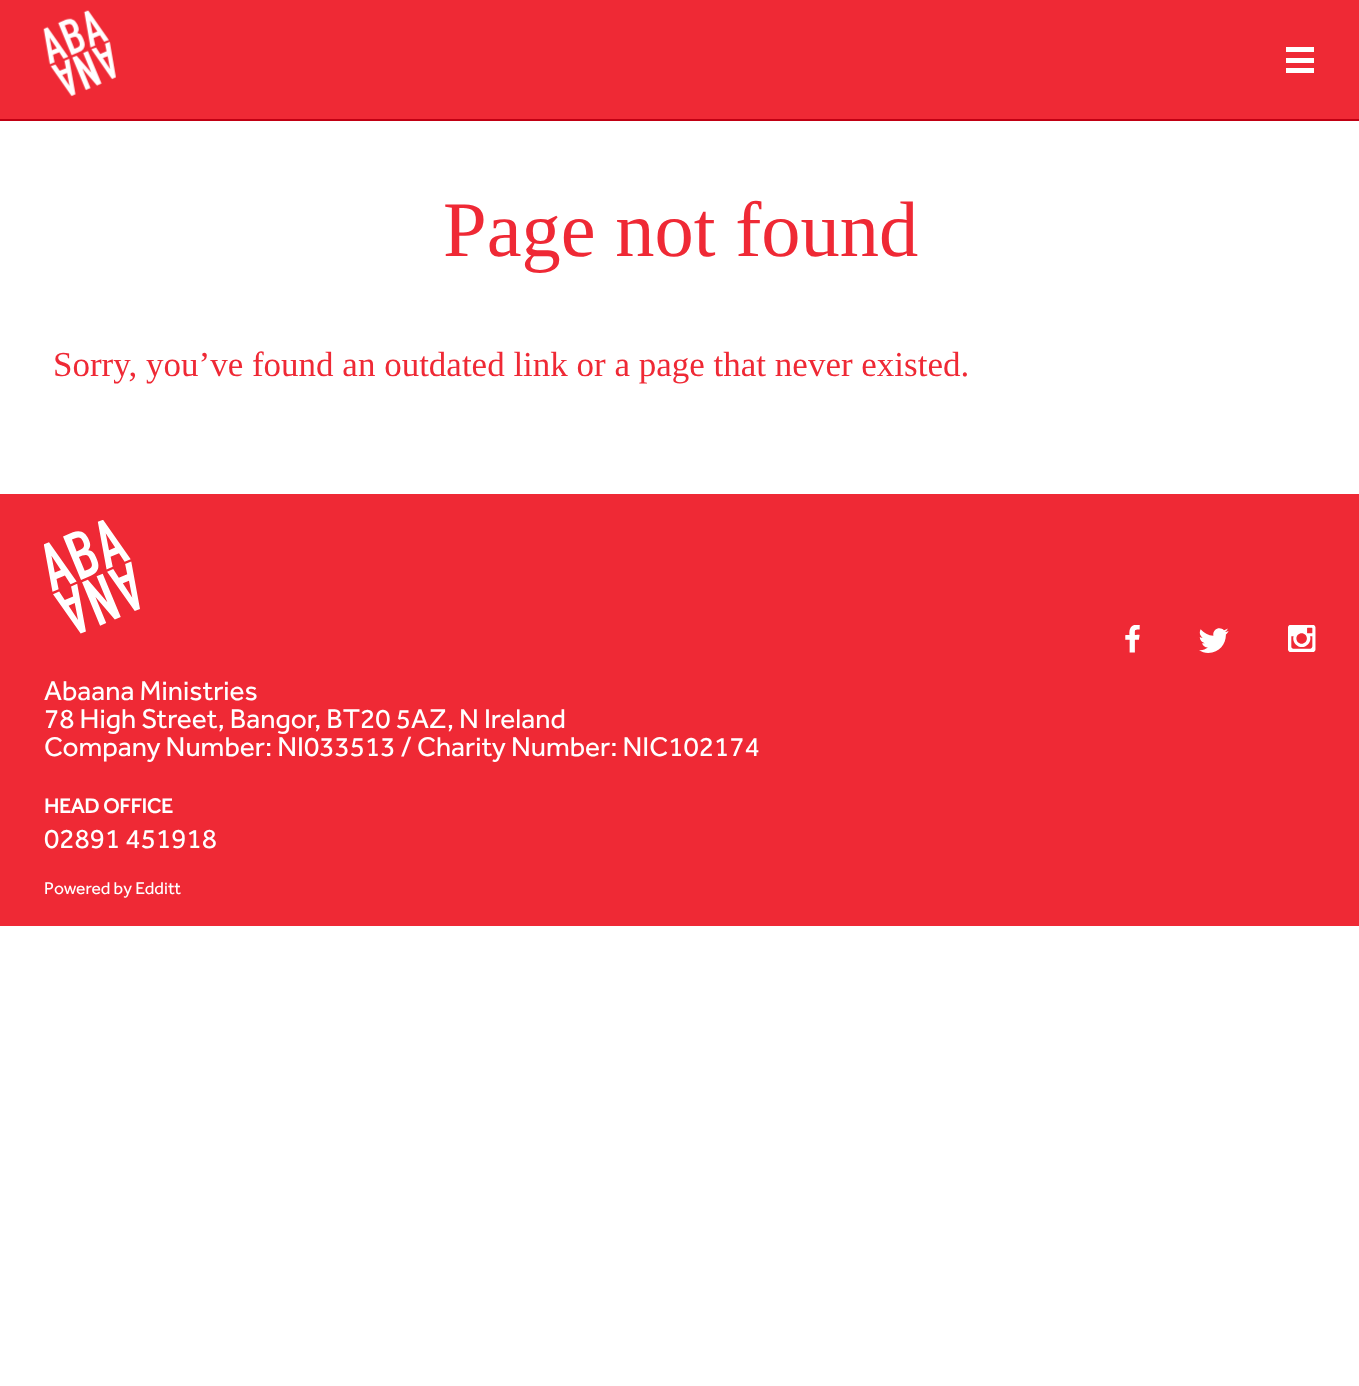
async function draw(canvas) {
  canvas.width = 1359
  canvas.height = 1386
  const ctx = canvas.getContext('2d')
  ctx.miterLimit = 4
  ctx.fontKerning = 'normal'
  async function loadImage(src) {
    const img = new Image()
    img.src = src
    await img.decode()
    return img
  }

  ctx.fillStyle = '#fff'
  ctx.fillRect(0, 0, 1359, 1386)
  ctx.fillStyle = '#ef2935'
  ctx.fillRect(0, 0, 1359, 119)
  ctx.fillStyle = '#c10013'
  ctx.fillRect(0, 119, 1359, 2)
  ctx.drawImage(await loadImage('image0.png'), 43, 10, 73, 87)
  ctx.fillStyle = '#fff'
  ctx.fillRect(1286, 47, 28, 5)
  ctx.fillRect(1286, 58, 28, 5)
  ctx.fillRect(1286, 68, 28, 5)
  ctx.font = '78.5px Liberation Serif'
  ctx.fillStyle = '#ef2935'
  ctx.fillText('Page not found', 443, 256)
  ctx.font = '35px Liberation Serif'
  ctx.fillText('Sorry, you’ve found an outdated link or a page that never existed.', 53, 376)
  ctx.fillRect(0, 494, 1359, 432)
  ctx.drawImage(await loadImage('image1.png'), 44, 520, 96, 114)
  ctx.drawImage(await loadImage('image2.png'), 1125, 625, 15, 28)
  ctx.drawImage(await loadImage('image3.png'), 1199, 628, 30, 25)
  ctx.drawImage(await loadImage('image4.png'), 1288, 625, 28, 27)
  ctx.font = '28px "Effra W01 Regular"'
  ctx.fillStyle = '#fff'
  ctx.fillText('Abaana Ministries', 44, 700)
  ctx.fillText('78 High Street, Bangor, BT20 5AZ, N Ireland', 44, 728)
  ctx.fillText('Company Number: NI033513 / Charity Number: NIC102174', 44, 756)
  ctx.font = 'bold 21px "Effra W01 Regular"'
  ctx.fillText('HEAD OFFICE', 44, 813)
  ctx.font = '28px "Effra W01 Regular"'
  ctx.fillText('02891 451918', 44, 848)
  ctx.font = '17.5px "Effra W01 Regular"'
  ctx.fillText('Powered by Edditt', 44, 894)
}

draw(document.querySelector('canvas'))
